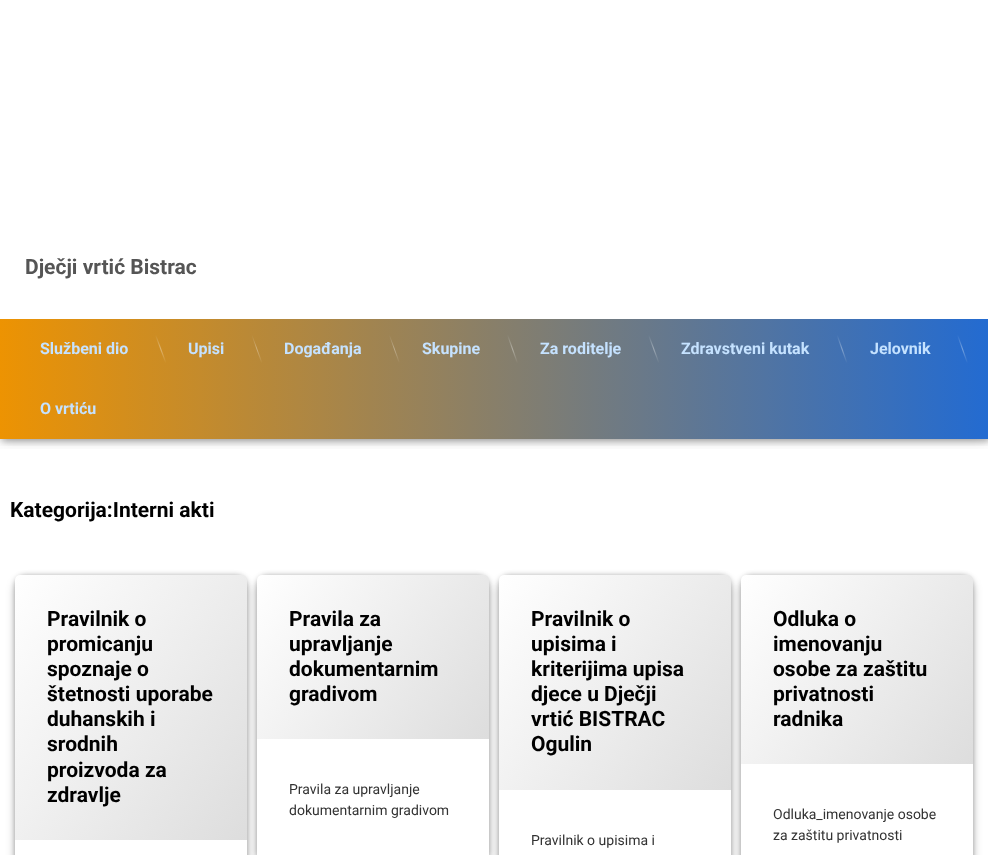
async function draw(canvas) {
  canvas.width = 988
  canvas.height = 855
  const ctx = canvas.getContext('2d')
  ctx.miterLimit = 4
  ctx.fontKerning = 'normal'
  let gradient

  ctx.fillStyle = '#fff'
  ctx.fillRect(0, 0, 988, 855)
  ctx.save()
  ctx.beginPath()
  ctx.rect(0, 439, 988, 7)
  ctx.clip()
  ctx.fillStyle = '#0000004d'
  ctx.filter = 'blur(3.5px)'
  ctx.beginPath()
  ctx.rect(2, 2, 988, 439)
  ctx.fill()
  ctx.filter = 'none'
  ctx.restore()
  ctx.save()
  ctx.beginPath()
  ctx.rect(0, 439, 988, 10)
  ctx.clip()
  ctx.fillStyle = '#00000033'
  ctx.filter = 'blur(7.5px)'
  ctx.beginPath()
  ctx.rect(0, 0, 988, 439)
  ctx.fill()
  ctx.filter = 'none'
  ctx.restore()
  ctx.font = 'bold 21px Roboto'
  ctx.fillStyle = '#555'
  ctx.fillText('Dječji vrtić Bistrac', 25, 274)
  gradient = ctx.createLinearGradient(0, 379, 988, 379)
  gradient.addColorStop(0, '#ed9302')
  gradient.addColorStop(1, '#236bd1')
  ctx.fillStyle = gradient
  ctx.fillRect(0, 319, 988, 120)
  ctx.font = 'bold 16px Roboto'
  ctx.fillStyle = '#c5e2ff'
  ctx.fillText('Službeni dio', 40, 354)
  gradient = ctx.createLinearGradient(156, 335, 166, 363)
  gradient.addColorStop(0, '#cc8d24')
  gradient.addColorStop(0.5, '#deb572')
  gradient.addColorStop(1, '#cc8d24')
  ctx.fillStyle = gradient
  ctx.beginPath()
  ctx.moveTo(155, 335)
  ctx.lineTo(156, 334.5)
  ctx.lineTo(166.5, 363)
  ctx.lineTo(165.5, 363.5)
  ctx.closePath()
  ctx.fill()
  ctx.fillStyle = '#c5e2ff'
  ctx.fillText('Upisi', 188, 354)
  gradient = ctx.createLinearGradient(252, 335, 262, 363)
  gradient.addColorStop(0, '#b88938')
  gradient.addColorStop(0.5, '#d2b380')
  gradient.addColorStop(1, '#b88938')
  ctx.fillStyle = gradient
  ctx.beginPath()
  ctx.moveTo(251.5, 335)
  ctx.lineTo(252, 334.5)
  ctx.lineTo(262.5, 363)
  ctx.lineTo(261.5, 363.5)
  ctx.closePath()
  ctx.fill()
  ctx.fillStyle = '#c5e2ff'
  ctx.fillText('Događanja', 284, 354)
  gradient = ctx.createLinearGradient(389, 335, 399, 363)
  gradient.addColorStop(0, '#9c8355')
  gradient.addColorStop(0.5, '#c0b092')
  gradient.addColorStop(1, '#9c8355')
  ctx.fillStyle = gradient
  ctx.beginPath()
  ctx.moveTo(389, 335)
  ctx.lineTo(389.5, 334.5)
  ctx.lineTo(400, 363)
  ctx.lineTo(399, 363.5)
  ctx.closePath()
  ctx.fill()
  ctx.fillStyle = '#c5e2ff'
  ctx.fillText('Skupine', 422, 354)
  gradient = ctx.createLinearGradient(507, 335, 518, 363)
  gradient.addColorStop(0, '#847e6d')
  gradient.addColorStop(0.5, '#b0ada2')
  gradient.addColorStop(1, '#847e6d')
  ctx.fillStyle = gradient
  ctx.beginPath()
  ctx.moveTo(507, 335)
  ctx.lineTo(508, 334.5)
  ctx.lineTo(518, 363)
  ctx.lineTo(517, 363.5)
  ctx.closePath()
  ctx.fill()
  ctx.fillStyle = '#c5e2ff'
  ctx.fillText('Za roditelje', 540, 354)
  gradient = ctx.createLinearGradient(649, 335, 659, 363)
  gradient.addColorStop(0, '#67798b')
  gradient.addColorStop(0.5, '#9ea9b4')
  gradient.addColorStop(1, '#67798b')
  ctx.fillStyle = gradient
  ctx.beginPath()
  ctx.moveTo(648, 335)
  ctx.lineTo(649, 334.5)
  ctx.lineTo(659.5, 363)
  ctx.lineTo(658.5, 363.5)
  ctx.closePath()
  ctx.fill()
  ctx.fillStyle = '#c5e2ff'
  ctx.fillText('Zdravstveni kutak', 681, 354)
  gradient = ctx.createLinearGradient(837, 335, 847, 363)
  gradient.addColorStop(0, '#4171b2')
  gradient.addColorStop(0.5, '#85a4ce')
  gradient.addColorStop(1, '#4171b2')
  ctx.fillStyle = gradient
  ctx.beginPath()
  ctx.moveTo(836.5, 335)
  ctx.lineTo(837.5, 334.5)
  ctx.lineTo(847.5, 363)
  ctx.lineTo(846.5, 363.5)
  ctx.closePath()
  ctx.fill()
  ctx.fillStyle = '#c5e2ff'
  ctx.fillText('Jelovnik', 870, 354)
  gradient = ctx.createLinearGradient(957, 335, 968, 363)
  gradient.addColorStop(0, '#286ccc')
  gradient.addColorStop(0.5, '#75a1de')
  gradient.addColorStop(1, '#286ccc')
  ctx.fillStyle = gradient
  ctx.beginPath()
  ctx.moveTo(957, 335)
  ctx.lineTo(958, 334.5)
  ctx.lineTo(968, 363)
  ctx.lineTo(967, 363.5)
  ctx.closePath()
  ctx.fill()
  ctx.fillStyle = '#c5e2ff'
  ctx.fillText('O vrtiću', 40, 414)
  ctx.font = 'bold 21px Roboto'
  ctx.fillStyle = '#000'
  ctx.fillText('Kategorija:Interni akti', 10, 517)
  ctx.fillStyle = '#00000040'
  ctx.filter = 'blur(2.5px)'
  ctx.beginPath()
  ctx.roundRect(15, 575, 232, 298, 10)
  ctx.fill()
  ctx.filter = 'none'
  ctx.filter = 'blur(5px)'
  ctx.beginPath()
  ctx.roundRect(15, 580, 232, 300, 10)
  ctx.fill()
  ctx.filter = 'none'
  ctx.fillStyle = '#fff'
  ctx.beginPath()
  ctx.moveTo(25, 575)
  ctx.lineTo(237, 575)
  ctx.bezierCurveTo(242.5, 575, 247, 579.5, 247, 585)
  ctx.lineTo(247, 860)
  ctx.bezierCurveTo(247, 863, 245, 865, 242, 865)
  ctx.lineTo(20, 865)
  ctx.bezierCurveTo(17, 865, 15, 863, 15, 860)
  ctx.lineTo(15, 585)
  ctx.bezierCurveTo(15, 579.5, 19.5, 575, 25, 575)
  ctx.closePath()
  ctx.fill()
  gradient = ctx.createLinearGradient(-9, 609, 271, 806)
  gradient.addColorStop(0, '#fff')
  gradient.addColorStop(1, '#ddd')
  ctx.fillStyle = gradient
  ctx.beginPath()
  ctx.roundRect(15, 575, 232, 265, [5, 5, 0, 0])
  ctx.fill()
  ctx.fillStyle = '#000'
  ctx.fillText('Pravilnik o', 47, 626)
  ctx.fillText('promicanju', 47, 651)
  ctx.fillText('spoznaje o', 47, 676)
  ctx.fillText('štetnosti uporabe', 47, 701)
  ctx.fillText('duhanskih i', 47, 726)
  ctx.fillText('srodnih', 47, 751)
  ctx.fillText('proizvoda za', 47, 777)
  ctx.fillText('zdravlje', 47, 802)
  ctx.fillStyle = '#00000040'
  ctx.filter = 'blur(2.5px)'
  ctx.beginPath()
  ctx.roundRect(257, 575, 232, 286, 10)
  ctx.fill()
  ctx.filter = 'none'
  ctx.filter = 'blur(5px)'
  ctx.beginPath()
  ctx.roundRect(257, 580, 232, 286, 10)
  ctx.fill()
  ctx.filter = 'none'
  ctx.fillStyle = '#fff'
  ctx.beginPath()
  ctx.moveTo(267, 575)
  ctx.lineTo(479, 575)
  ctx.bezierCurveTo(484.5, 575, 489, 579.5, 489, 585)
  ctx.lineTo(489, 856)
  ctx.bezierCurveTo(489, 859, 487, 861, 484, 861)
  ctx.lineTo(262, 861)
  ctx.bezierCurveTo(259, 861, 257, 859, 257, 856)
  ctx.lineTo(257, 585)
  ctx.bezierCurveTo(257, 579.5, 261.5, 575, 267, 575)
  ctx.closePath()
  ctx.fill()
  gradient = ctx.createLinearGradient(257, 576, 489, 738)
  gradient.addColorStop(0, '#fff')
  gradient.addColorStop(1, '#ddd')
  ctx.fillStyle = gradient
  ctx.beginPath()
  ctx.roundRect(257, 575, 232, 164, [5, 5, 0, 0])
  ctx.fill()
  ctx.fillStyle = '#000'
  ctx.fillText('Pravila za', 289, 626)
  ctx.fillText('upravljanje', 289, 651)
  ctx.fillText('dokumentarnim', 289, 676)
  ctx.fillText('gradivom', 289, 701)
  ctx.font = '14px Roboto'
  ctx.fillStyle = '#333'
  ctx.fillText('Pravila za upravljanje', 289, 794)
  ctx.fillText('dokumentarnim gradivom', 289, 815)
  ctx.fillStyle = '#00000040'
  ctx.filter = 'blur(2.5px)'
  ctx.beginPath()
  ctx.roundRect(499, 575, 232, 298, 10)
  ctx.fill()
  ctx.filter = 'none'
  ctx.filter = 'blur(5px)'
  ctx.beginPath()
  ctx.roundRect(499, 580, 232, 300, 10)
  ctx.fill()
  ctx.filter = 'none'
  ctx.fillStyle = '#fff'
  ctx.beginPath()
  ctx.moveTo(509, 575)
  ctx.lineTo(721, 575)
  ctx.bezierCurveTo(726.5, 575, 731, 579.5, 731, 585)
  ctx.lineTo(731, 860)
  ctx.bezierCurveTo(731, 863, 729, 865, 726, 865)
  ctx.lineTo(504, 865)
  ctx.bezierCurveTo(501, 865, 499, 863, 499, 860)
  ctx.lineTo(499, 585)
  ctx.bezierCurveTo(499, 579.5, 503.5, 575, 509, 575)
  ctx.closePath()
  ctx.fill()
  gradient = ctx.createLinearGradient(487, 593, 743, 772)
  gradient.addColorStop(0, '#fff')
  gradient.addColorStop(1, '#ddd')
  ctx.fillStyle = gradient
  ctx.beginPath()
  ctx.roundRect(499, 575, 232, 215, [5, 5, 0, 0])
  ctx.fill()
  ctx.font = 'bold 21px Roboto'
  ctx.fillStyle = '#000'
  ctx.fillText('Pravilnik o', 531, 626)
  ctx.fillText('upisima i', 531, 651)
  ctx.fillText('kriterijima upisa', 531, 676)
  ctx.fillText('djece u Dječji', 531, 701)
  ctx.fillText('vrtić BISTRAC', 531, 726)
  ctx.fillText('Ogulin', 531, 751)
  ctx.font = '14px Roboto'
  ctx.fillStyle = '#333'
  ctx.fillText('Pravilnik o upisima i', 531, 845)
  ctx.fillStyle = '#00000040'
  ctx.filter = 'blur(2.5px)'
  ctx.beginPath()
  ctx.roundRect(741, 575, 232, 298, 10)
  ctx.fill()
  ctx.filter = 'none'
  ctx.filter = 'blur(5px)'
  ctx.beginPath()
  ctx.roundRect(741, 580, 232, 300, 10)
  ctx.fill()
  ctx.filter = 'none'
  ctx.fillStyle = '#fff'
  ctx.beginPath()
  ctx.moveTo(751, 575)
  ctx.lineTo(963, 575)
  ctx.bezierCurveTo(968.5, 575, 973, 579.5, 973, 585)
  ctx.lineTo(973, 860)
  ctx.bezierCurveTo(973, 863, 971, 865, 968, 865)
  ctx.lineTo(746, 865)
  ctx.bezierCurveTo(743, 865, 741, 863, 741, 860)
  ctx.lineTo(741, 585)
  ctx.bezierCurveTo(741, 579.5, 745.5, 575, 751, 575)
  ctx.closePath()
  ctx.fill()
  gradient = ctx.createLinearGradient(735, 584, 979, 755)
  gradient.addColorStop(0, '#fff')
  gradient.addColorStop(1, '#ddd')
  ctx.fillStyle = gradient
  ctx.beginPath()
  ctx.roundRect(741, 575, 232, 189, [5, 5, 0, 0])
  ctx.fill()
  ctx.font = 'bold 21px Roboto'
  ctx.fillStyle = '#000'
  ctx.fillText('Odluka o', 773, 626)
  ctx.fillText('imenovanju', 773, 651)
  ctx.fillText('osobe za zaštitu', 773, 676)
  ctx.fillText('privatnosti', 773, 701)
  ctx.fillText('radnika', 773, 726)
  ctx.font = '14px Roboto'
  ctx.fillStyle = '#333'
  ctx.fillText('Odluka_imenovanje osobe', 773, 819)
  ctx.fillText('za zaštitu privatnosti', 773, 840)
}

draw(document.querySelector('canvas'))
